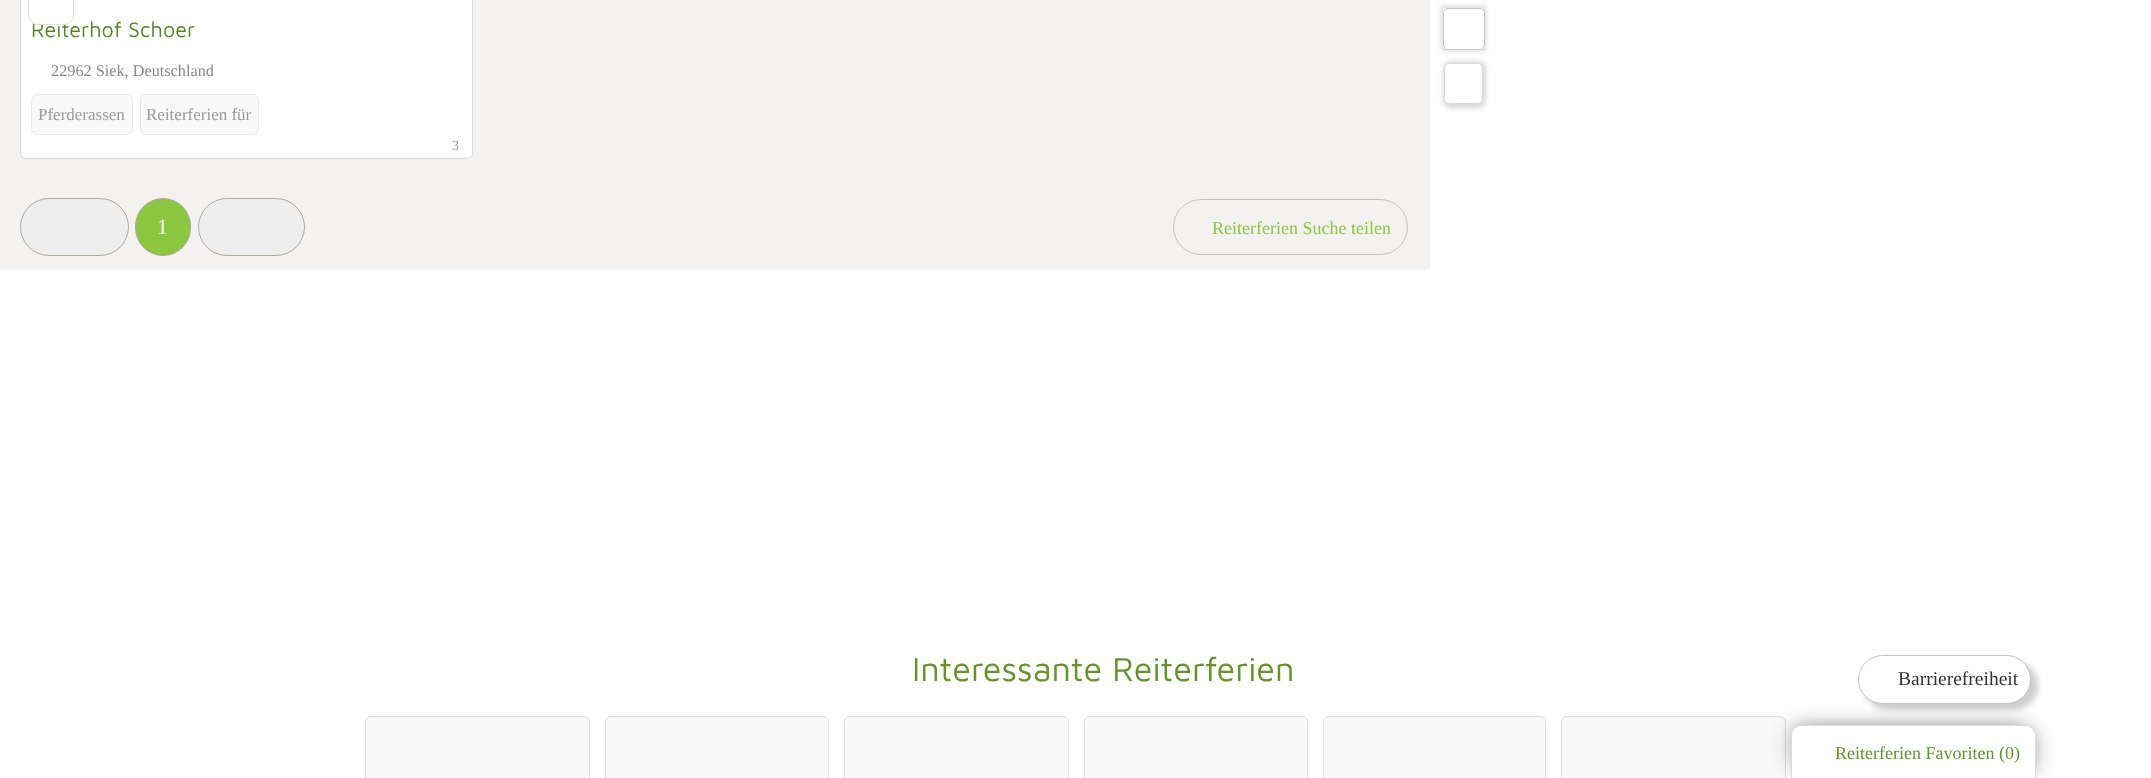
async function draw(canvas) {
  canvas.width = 2151
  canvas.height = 778
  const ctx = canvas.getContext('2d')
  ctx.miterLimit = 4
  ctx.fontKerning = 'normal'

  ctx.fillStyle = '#fff'
  ctx.fillRect(0, 0, 2151, 778)
  ctx.fillStyle = '#f3f2f0'
  ctx.fillRect(0, 0, 1430, 270)
  ctx.fillStyle = '#fff'
  ctx.beginPath()
  ctx.roundRect(20.5, -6.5, 452, 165, 5.5)
  ctx.fill()
  ctx.strokeStyle = '#dedbd7'
  ctx.stroke()
  ctx.font = '21.5px Maven Pro'
  ctx.fillStyle = '#5a8227'
  ctx.fillText('Reiterhof Schoer', 31, 37)
  ctx.fillStyle = '#ffffffe6'
  ctx.beginPath()
  ctx.roundRect(28, -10, 46, 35, 10)
  ctx.fill()
  ctx.beginPath()
  ctx.roundRect(28.5, -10.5, 45, 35, 9.5)
  ctx.strokeStyle = '#dedbd7e6'
  ctx.stroke()
  ctx.font = '16.25px Liberation Serif'
  ctx.fillStyle = '#888'
  ctx.fillText('22962 Siek, Deutschland', 51, 76)
  ctx.fillStyle = '#faf9f9'
  ctx.beginPath()
  ctx.roundRect(31.5, 94.5, 101, 40, 5.5)
  ctx.fill()
  ctx.strokeStyle = '#eceae8'
  ctx.stroke()
  ctx.font = '17px Liberation Serif'
  ctx.fillStyle = '#999'
  ctx.fillText('Pferderassen', 38, 120)
  ctx.fillStyle = '#faf9f9'
  ctx.beginPath()
  ctx.roundRect(140.5, 94.5, 118, 40, 5.5)
  ctx.fill()
  ctx.stroke()
  ctx.fillStyle = '#999'
  ctx.fillText('Reiterferien für', 146, 120)
  ctx.font = '14px Liberation Serif'
  ctx.fillText('3', 452, 150)
  ctx.fillStyle = '#eee'
  ctx.beginPath()
  ctx.roundRect(20.5, 198.5, 108, 57, 28.5)
  ctx.fill()
  ctx.strokeStyle = '#b0a99f'
  ctx.stroke()
  ctx.fillStyle = '#8bc63f'
  ctx.beginPath()
  ctx.roundRect(135.5, 198.5, 55, 57, 27.5)
  ctx.fill()
  ctx.stroke()
  ctx.font = '21.5px Liberation Serif'
  ctx.fillStyle = '#fff'
  ctx.fillText('1', 157, 234)
  ctx.fillStyle = '#eee'
  ctx.beginPath()
  ctx.roundRect(198.5, 198.5, 106, 57, 28.5)
  ctx.fill()
  ctx.stroke()
  ctx.beginPath()
  ctx.roundRect(1173.5, 199.5, 234, 55, 27.5)
  ctx.strokeStyle = '#c7c2bb'
  ctx.stroke()
  ctx.font = '18px Liberation Serif'
  ctx.fillStyle = '#8bc63f'
  ctx.fillText('Reiterferien Suche teilen', 1212, 234)
  ctx.save()
  ctx.beginPath()
  ctx.moveTo(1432, 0)
  ctx.lineTo(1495, 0)
  ctx.lineTo(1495, 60)
  ctx.lineTo(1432, 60)
  ctx.closePath()
  ctx.moveTo(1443, 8)
  ctx.lineTo(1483, 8)
  ctx.lineTo(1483, 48)
  ctx.lineTo(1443, 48)
  ctx.closePath()
  ctx.clip('evenodd')
  ctx.fillStyle = '#00000026'
  ctx.filter = 'blur(2.5px)'
  ctx.beginPath()
  ctx.rect(1441, 6, 45, 45)
  ctx.fill()
  ctx.filter = 'none'
  ctx.restore()
  ctx.fillStyle = '#fff'
  ctx.beginPath()
  ctx.roundRect(1443, 8, 42, 42, 5)
  ctx.fill()
  ctx.beginPath()
  ctx.roundRect(1443.5, 8.5, 41, 41, 4.5)
  ctx.strokeStyle = '#b0a99fb3'
  ctx.stroke()
  ctx.fillStyle = '#00000026'
  ctx.filter = 'blur(2.5px)'
  ctx.beginPath()
  ctx.roundRect(1443, 61, 43, 47, 8)
  ctx.fill()
  ctx.filter = 'none'
  ctx.fillStyle = '#fff'
  ctx.beginPath()
  ctx.roundRect(1444.5, 63.5, 38, 40, 4.5)
  ctx.fill()
  ctx.strokeStyle = '#dedbd7'
  ctx.stroke()
  ctx.fillStyle = '#f9f9f9'
  ctx.beginPath()
  ctx.roundRect(1561.5, 716.5, 224, 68, 5.5)
  ctx.fill()
  ctx.strokeStyle = '#ddd'
  ctx.stroke()
  ctx.fillStyle = '#0000004d'
  ctx.filter = 'blur(9.5px)'
  ctx.beginPath()
  ctx.roundRect(1804, 731, 232, 42, 4)
  ctx.fill()
  ctx.filter = 'none'
  ctx.filter = 'blur(9.5px)'
  ctx.beginPath()
  ctx.roundRect(1791, 725, 233, 41, 4)
  ctx.fill()
  ctx.filter = 'none'
  ctx.fillStyle = '#fff'
  ctx.beginPath()
  ctx.moveTo(1801, 725.5)
  ctx.lineTo(2026, 725.5)
  ctx.bezierCurveTo(2031, 725.5, 2035.5, 730, 2035.5, 735)
  ctx.lineTo(2035.5, 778.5)
  ctx.lineTo(1791.5, 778.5)
  ctx.lineTo(1791.5, 735)
  ctx.bezierCurveTo(1791.5, 730, 1796, 725.5, 1801, 725.5)
  ctx.closePath()
  ctx.fill()
  ctx.strokeStyle = '#dedbd7'
  ctx.stroke()
  ctx.fillStyle = '#65922b'
  ctx.fillText('Reiterferien Favoriten (0)', 1835, 759)
  ctx.font = '34.25px Maven Pro'
  ctx.fillText('Interessante Reiterferien', 912, 681)
  ctx.fillStyle = '#f9f9f9'
  ctx.beginPath()
  ctx.roundRect(365.5, 716.5, 224, 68, 5.5)
  ctx.fill()
  ctx.strokeStyle = '#ddd'
  ctx.stroke()
  ctx.beginPath()
  ctx.roundRect(605.5, 716.5, 223, 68, 5.5)
  ctx.fill()
  ctx.stroke()
  ctx.beginPath()
  ctx.roundRect(844.5, 716.5, 224, 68, 5.5)
  ctx.fill()
  ctx.stroke()
  ctx.beginPath()
  ctx.roundRect(1084.5, 716.5, 223, 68, 5.5)
  ctx.fill()
  ctx.stroke()
  ctx.beginPath()
  ctx.roundRect(1323.5, 716.5, 222, 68, 5.5)
  ctx.fill()
  ctx.stroke()
  ctx.fillStyle = '#00000033'
  ctx.filter = 'blur(3px)'
  ctx.beginPath()
  ctx.roundRect(1864, 661, 174, 49, 24.5)
  ctx.fill()
  ctx.filter = 'none'
  ctx.fillStyle = '#fff'
  ctx.beginPath()
  ctx.roundRect(1858.5, 655.5, 172, 48, 24)
  ctx.fill()
  ctx.strokeStyle = '#c7c2bb'
  ctx.stroke()
  ctx.font = '19.5px Liberation Serif'
  ctx.fillStyle = '#333'
  ctx.fillText('Barrierefreiheit', 1898, 685)
}

draw(document.querySelector('canvas'))
